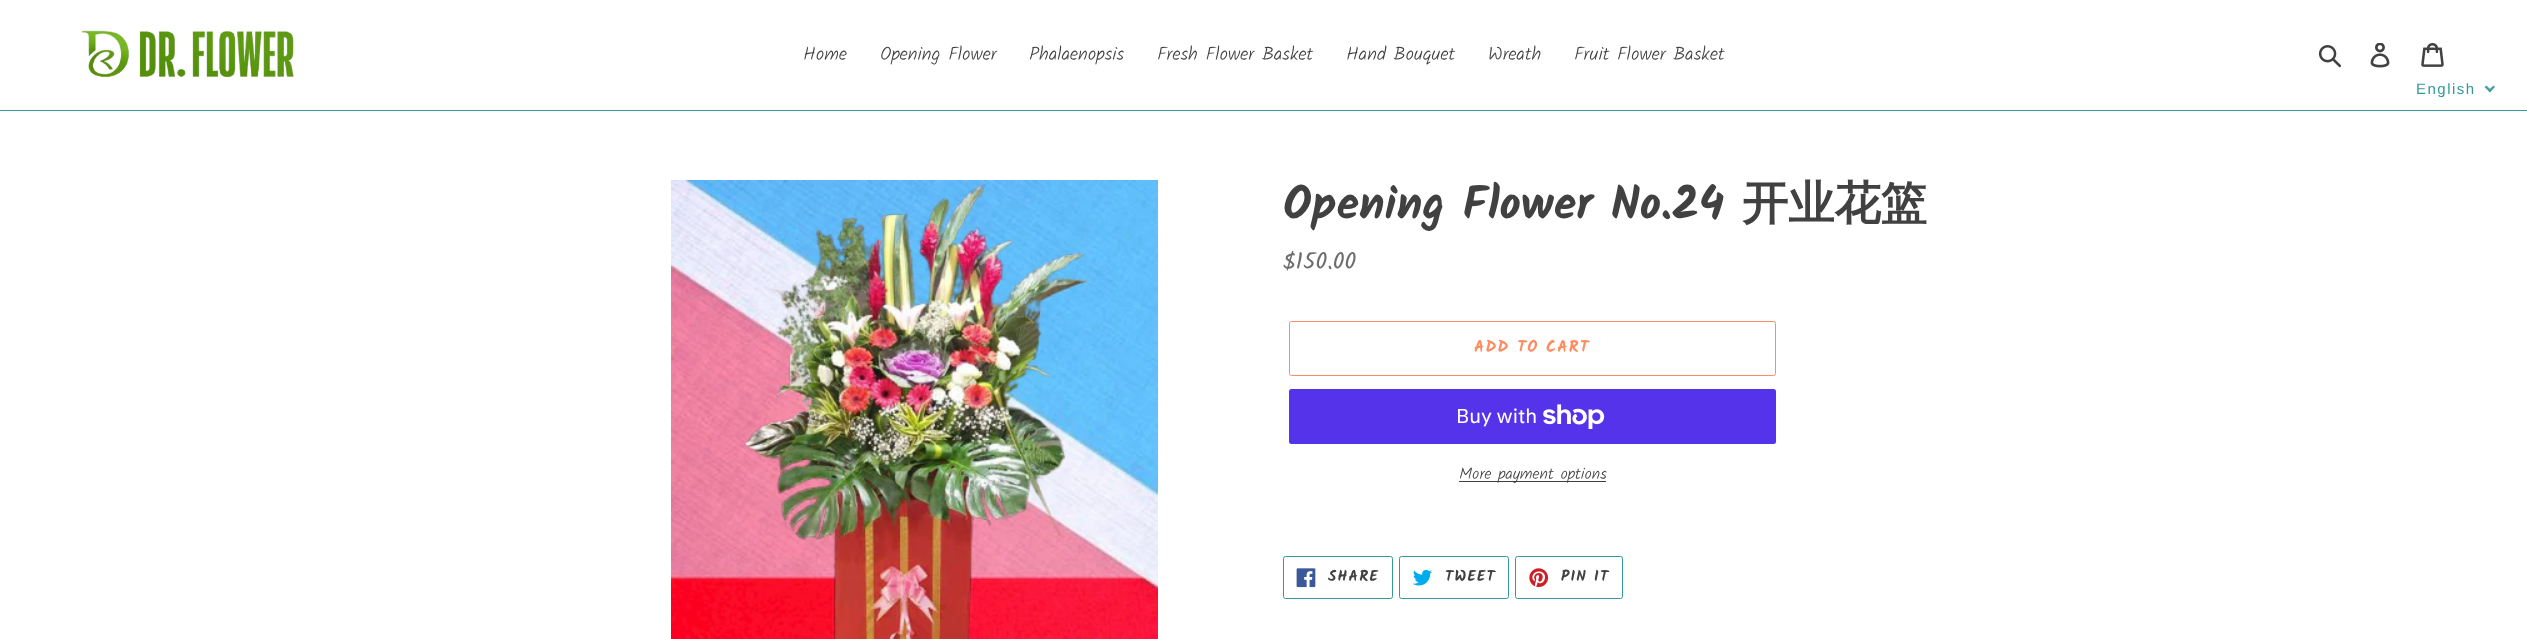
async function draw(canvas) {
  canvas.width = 2527
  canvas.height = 639
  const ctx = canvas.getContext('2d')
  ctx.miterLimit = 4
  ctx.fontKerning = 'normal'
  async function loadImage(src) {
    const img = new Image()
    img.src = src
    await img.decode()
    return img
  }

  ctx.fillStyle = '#fff'
  ctx.fillRect(0, 0, 2527, 639)
  ctx.fillStyle = '#399'
  ctx.fillRect(0, 110, 2527, 1)
  ctx.drawImage(await loadImage('image0.png'), 82, 30, 212, 48)
  ctx.font = '300 18.75px Kalam'
  ctx.fillStyle = '#414141'
  ctx.fillText('Home', 803, 60)
  ctx.fillText('Opening Flower', 880, 60)
  ctx.fillText('Phalaenopsis', 1029, 60)
  ctx.fillText('Fresh Flower Basket', 1157, 60)
  ctx.fillText('Hand Bouquet', 1346, 60)
  ctx.fillText('Wreath', 1488, 60)
  ctx.fillText('Fruit Flower Basket', 1574, 60)
  ctx.drawImage(await loadImage('image1.png'), 2318, 45, 23, 23)
  ctx.drawImage(await loadImage('image2.png'), 2370, 43, 20, 25)
  ctx.drawImage(await loadImage('image3.png'), 2421, 43, 23, 24)
  ctx.letterSpacing = '1.5px'
  ctx.font = '15px Liberation Sans'
  ctx.fillStyle = '#399'
  ctx.fillText('English', 2416, 94)
  ctx.fillStyle = '#47a3a3'
  ctx.beginPath()
  ctx.moveTo(2493.5, 85.5)
  ctx.lineTo(2495, 87)
  ctx.lineTo(2490, 92.5)
  ctx.lineTo(2488, 90.5)
  ctx.closePath()
  ctx.fill()
  ctx.beginPath()
  ctx.moveTo(2486.5, 85.5)
  ctx.lineTo(2491.5, 90.5)
  ctx.lineTo(2490, 92.5)
  ctx.lineTo(2484.5, 87)
  ctx.closePath()
  ctx.fill()
  ctx.drawImage(await loadImage('image4.png'), 671, 180, 487, 459)
  ctx.letterSpacing = '0px'
  ctx.font = 'bold 46.25px Kalam'
  ctx.fillStyle = '#414141'
  ctx.fillText('Opening Flower No.24', 1283, 219)
  ctx.font = 'bold 46.25px WenQuanYi Zen Hei'
  ctx.fillText('开业花篮', 1742, 219)
  ctx.font = '23.5px Kalam'
  ctx.fillStyle = '#6d6d6d'
  ctx.fillText('$150.00', 1283, 269)
  ctx.beginPath()
  ctx.roundRect(1289.5, 321.5, 486, 54, 2)
  ctx.strokeStyle = '#ff8c61'
  ctx.stroke()
  ctx.letterSpacing = '1.25px'
  ctx.font = 'bold 16.25px Kalam'
  ctx.fillStyle = '#ff8c61'
  ctx.fillText('ADD TO CART', 1474, 352)
  ctx.fillStyle = '#5433eb'
  ctx.beginPath()
  ctx.roundRect(1289, 389, 487, 55, 2.5)
  ctx.fill()
  ctx.letterSpacing = '0px'
  ctx.font = '20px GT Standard'
  ctx.fillStyle = '#fff'
  ctx.fillText('Buy with', 1456, 423)
  ctx.drawImage(await loadImage('image5.png'), 1543, 404, 62, 25)
  ctx.fillStyle = '#414141'
  ctx.fillRect(1459, 481, 147, 1)
  ctx.font = '300 16.25px Kalam'
  ctx.fillText('More payment options', 1459, 479)
  ctx.beginPath()
  ctx.roundRect(1283.5, 556.5, 109, 42, 2)
  ctx.strokeStyle = '#399'
  ctx.stroke()
  ctx.drawImage(await loadImage('image6.png'), 1296, 568, 20, 20)
  ctx.letterSpacing = '1.25px'
  ctx.font = 'bold 15px Kalam'
  ctx.fillText('SHARE', 1328, 581)
  ctx.beginPath()
  ctx.roundRect(1399.5, 556.5, 109, 42, 2)
  ctx.stroke()
  ctx.drawImage(await loadImage('image7.png'), 1413, 569, 19, 17)
  ctx.fillText('TWEET', 1445, 581)
  ctx.beginPath()
  ctx.roundRect(1515.5, 556.5, 107, 42, 2)
  ctx.stroke()
  ctx.drawImage(await loadImage('image8.png'), 1529, 568, 20, 20)
  ctx.fillText('PIN IT', 1561, 581)
}

draw(document.querySelector('canvas'))
